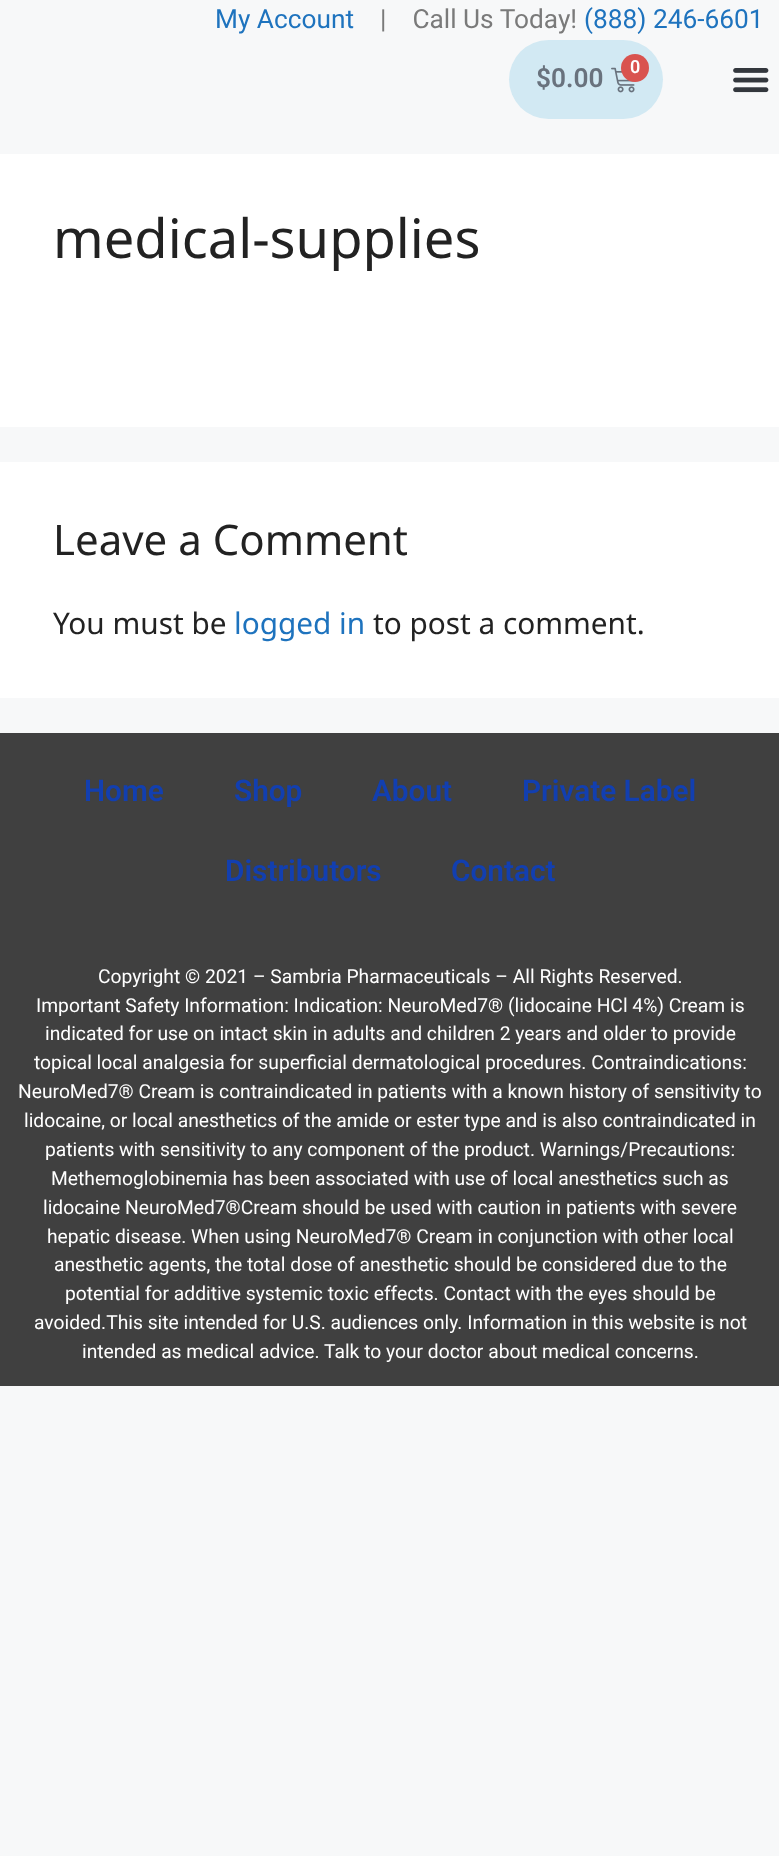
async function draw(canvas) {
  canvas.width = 779
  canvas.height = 1856
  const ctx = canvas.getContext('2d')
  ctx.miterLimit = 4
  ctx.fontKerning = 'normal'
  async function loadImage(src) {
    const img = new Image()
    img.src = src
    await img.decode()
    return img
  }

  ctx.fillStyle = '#f7f8f9'
  ctx.fillRect(0, 0, 779, 1856)
  ctx.font = '26.25px Roboto'
  ctx.fillStyle = '#1e73be'
  ctx.fillText('My Account', 215, 28)
  ctx.fillStyle = '#7a7a7a'
  ctx.fillText('|    Call Us Today!', 380, 28)
  ctx.fillStyle = '#1e73be'
  ctx.fillText('(888) 246-6601', 584, 28)
  ctx.fillStyle = '#d2e9f3'
  ctx.beginPath()
  ctx.roundRect(509, 40, 154, 79, 39.5)
  ctx.fill()
  ctx.font = '600 26.25px Roboto'
  ctx.fillStyle = '#69727d'
  ctx.fillText('$0.00', 536, 87)
  ctx.drawImage(await loadImage('image0.png'), 611, 67, 24, 26)
  ctx.fillStyle = '#d9534f'
  ctx.beginPath()
  ctx.arc(635, 68, 14, 0, 2 * Math.PI)
  ctx.fill()
  ctx.font = '600 18px Roboto'
  ctx.fillStyle = '#fff'
  ctx.fillText('0', 630, 73)
  ctx.drawImage(await loadImage('image1.png'), 733, 68, 36, 25)
  ctx.fillRect(0, 154, 779, 273)
  ctx.font = '54.25px Noto Sans'
  ctx.fillStyle = '#222'
  ctx.fillText('medical-supplies', 53, 258)
  ctx.fillStyle = '#fff'
  ctx.fillRect(0, 462, 779, 236)
  ctx.font = '42px Noto Sans'
  ctx.fillStyle = '#222'
  ctx.fillText('Leave a Comment', 53, 555)
  ctx.font = '29.75px Noto Sans'
  ctx.fillText('You must be', 53, 634)
  ctx.fillStyle = '#1e73be'
  ctx.fillText('logged in', 234, 634)
  ctx.fillStyle = '#222'
  ctx.fillText('to post a comment.', 373, 634)
  ctx.fillStyle = '#404040'
  ctx.fillRect(0, 733, 779, 653)
  ctx.font = '600 29.75px Roboto'
  ctx.fillStyle = '#123fb0'
  ctx.fillText('Home', 84, 801)
  ctx.fillText('Shop', 234, 801)
  ctx.fillText('About', 372, 801)
  ctx.fillText('Private Label', 522, 801)
  ctx.fillText('Distributors', 225, 881)
  ctx.fillText('Contact', 451, 881)
  ctx.font = '19.25px Roboto'
  ctx.fillStyle = '#fff'
  ctx.fillText('Copyright © 2021 – Sambria Pharmaceuticals – All Rights Reserved.', 98, 983)
  ctx.fillText('Important Safety Information: Indication: NeuroMed7® (lidocaine HCl 4%) Cream is', 36, 1012)
  ctx.fillText('indicated for use on intact skin in adults and children 2 years and older to provide', 45, 1040)
  ctx.fillText('topical local analgesia for superficial dermatological procedures. Contraindications:', 34, 1069)
  ctx.fillText('NeuroMed7® Cream is contraindicated in patients with a known history of sensitivity to', 18, 1098)
  ctx.fillText('lidocaine, or local anesthetics of the amide or ester type and is also contraindicated in', 24, 1127)
  ctx.fillText('patients with sensitivity to any component of the product. Warnings/Precautions:', 45, 1156)
  ctx.fillText('Methemoglobinemia has been associated with use of local anesthetics such as', 51, 1185)
  ctx.fillText('lidocaine NeuroMed7®Cream should be used with caution in patients with severe', 43, 1214)
  ctx.fillText('hepatic disease. When using NeuroMed7® Cream in conjunction with other local', 47, 1243)
  ctx.fillText('anesthetic agents, the total dose of anesthetic should be considered due to the', 54, 1271)
  ctx.fillText('potential for additive systemic toxic effects. Contact with the eyes should be', 65, 1300)
  ctx.fillText('avoided.This site intended for U.S. audiences only. Information in this website is not', 34, 1329)
  ctx.fillText('intended as medical advice. Talk to your doctor about medical concerns.', 82, 1358)
}

draw(document.querySelector('canvas'))
